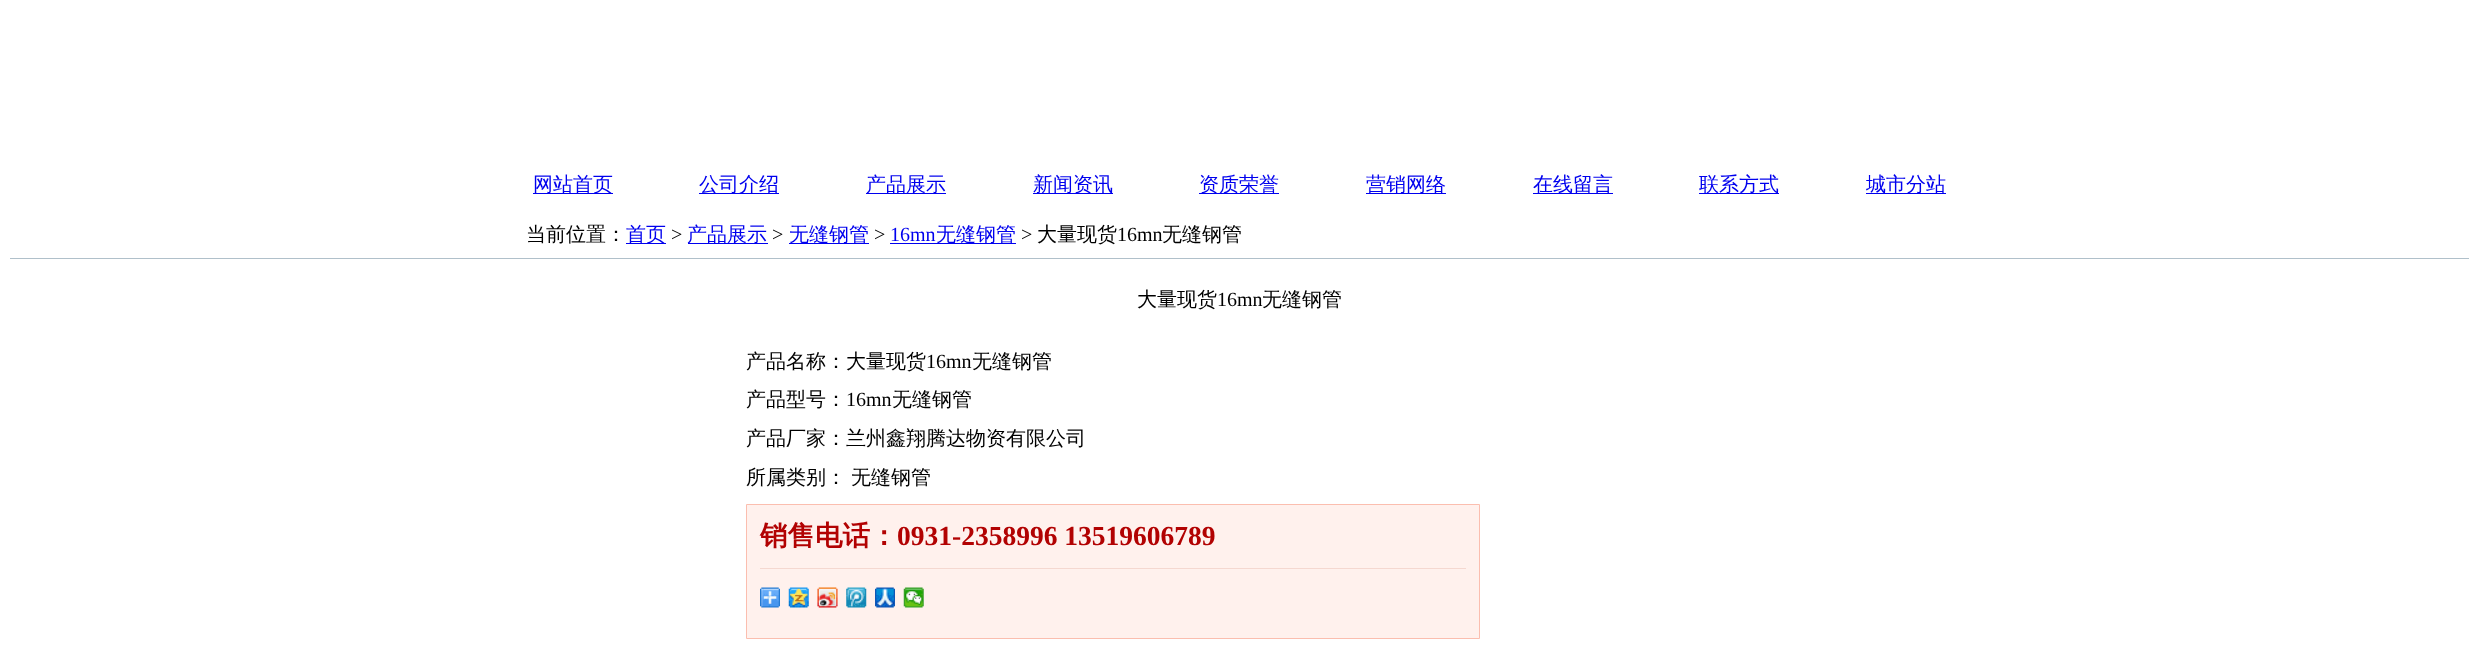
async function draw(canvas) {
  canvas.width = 2478
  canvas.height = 664
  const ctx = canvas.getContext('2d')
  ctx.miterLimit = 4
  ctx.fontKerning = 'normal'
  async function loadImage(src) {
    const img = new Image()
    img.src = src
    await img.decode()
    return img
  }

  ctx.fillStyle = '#fff'
  ctx.fillRect(0, 0, 2478, 664)
  ctx.fillStyle = '#00e'
  ctx.fillRect(533, 193, 80, 1)
  ctx.font = '500 20px WenQuanYi Zen Hei'
  ctx.fillText('网站首页', 533, 191)
  ctx.fillRect(699, 193, 80, 1)
  ctx.fillText('公司介绍', 699, 191)
  ctx.fillRect(866, 193, 80, 1)
  ctx.fillText('产品展示', 866, 191)
  ctx.fillRect(1033, 193, 80, 1)
  ctx.fillText('新闻资讯', 1033, 191)
  ctx.fillRect(1199, 193, 80, 1)
  ctx.fillText('资质荣誉', 1199, 191)
  ctx.fillRect(1366, 193, 80, 1)
  ctx.fillText('营销网络', 1366, 191)
  ctx.fillRect(1533, 193, 80, 1)
  ctx.fillText('在线留言', 1533, 191)
  ctx.fillRect(1699, 193, 80, 1)
  ctx.fillText('联系方式', 1699, 191)
  ctx.fillRect(1866, 193, 80, 1)
  ctx.fillText('城市分站', 1866, 191)
  ctx.fillStyle = '#b0c0ca'
  ctx.fillRect(10, 258, 2459, 1)
  ctx.fillStyle = '#000'
  ctx.fillText('当前位置：', 526, 241)
  ctx.fillStyle = '#00e'
  ctx.fillRect(626, 243, 40, 1)
  ctx.fillText('首页', 626, 241)
  ctx.font = '20px Liberation Serif'
  ctx.fillStyle = '#000'
  ctx.fillText('>', 671, 241)
  ctx.fillStyle = '#00e'
  ctx.fillRect(688, 243, 80, 1)
  ctx.font = '500 20px WenQuanYi Zen Hei'
  ctx.fillText('产品展示', 687, 241)
  ctx.font = '20px Liberation Serif'
  ctx.fillStyle = '#000'
  ctx.fillText('>', 772, 241)
  ctx.fillStyle = '#00e'
  ctx.fillRect(789, 243, 80, 1)
  ctx.font = '500 20px WenQuanYi Zen Hei'
  ctx.fillText('无缝钢管', 789, 241)
  ctx.font = '20px Liberation Serif'
  ctx.fillStyle = '#000'
  ctx.fillText('>', 874, 241)
  ctx.fillStyle = '#00e'
  ctx.fillText('16mn', 890, 241)
  ctx.fillRect(890, 243, 126, 1)
  ctx.font = '500 20px WenQuanYi Zen Hei'
  ctx.fillText('无缝钢管', 936, 241)
  ctx.font = '20px Liberation Serif'
  ctx.fillStyle = '#000'
  ctx.fillText('>', 1021, 241)
  ctx.font = '500 20px WenQuanYi Zen Hei'
  ctx.fillText('大量现货', 1037, 241)
  ctx.font = '20px Liberation Serif'
  ctx.fillText('16mn', 1117, 241)
  ctx.font = '500 20px WenQuanYi Zen Hei'
  ctx.fillText('无缝钢管', 1162, 241)
  ctx.fillText('大量现货', 1137, 306)
  ctx.font = '20px Liberation Serif'
  ctx.fillText('16mn', 1217, 306)
  ctx.font = '500 20px WenQuanYi Zen Hei'
  ctx.fillText('无缝钢管', 1262, 306)
  ctx.fillText('产品名称：大量现货', 746, 368)
  ctx.font = '20px Liberation Serif'
  ctx.fillText('16mn', 926, 368)
  ctx.font = '500 20px WenQuanYi Zen Hei'
  ctx.fillText('无缝钢管', 972, 368)
  ctx.fillText('产品型号：', 746, 406)
  ctx.font = '20px Liberation Serif'
  ctx.fillText('16mn', 846, 406)
  ctx.font = '500 20px WenQuanYi Zen Hei'
  ctx.fillText('无缝钢管', 892, 406)
  ctx.fillText('产品厂家：兰州鑫翔腾达物资有限公司', 746, 445)
  ctx.wordSpacing = '-1px'
  ctx.fillText('所属类别： 无缝钢管', 746, 484)
  ctx.fillStyle = '#fff1ed'
  ctx.beginPath()
  ctx.rect(746.5, 504.5, 733, 134)
  ctx.fill()
  ctx.strokeStyle = '#fbbeaf'
  ctx.stroke()
  ctx.wordSpacing = '0px'
  ctx.font = 'bold 27.5px WenQuanYi Zen Hei'
  ctx.fillStyle = '#b20202'
  ctx.fillText('销售电话：', 760, 545)
  ctx.font = 'bold 27.5px Liberation Serif'
  ctx.fillText('0931-2358996 13519606789', 897, 545)
  ctx.fillStyle = '#f5d8d0'
  ctx.fillRect(760, 568, 706, 1)
  ctx.drawImage(await loadImage('image0.png'), 760, 587, 20, 21)
  ctx.drawImage(await loadImage('image1.png'), 788, 587, 21, 21)
  ctx.drawImage(await loadImage('image2.png'), 817, 587, 21, 21)
  ctx.drawImage(await loadImage('image3.png'), 846, 587, 21, 21)
  ctx.drawImage(await loadImage('image4.png'), 875, 587, 20, 21)
  ctx.drawImage(await loadImage('image5.png'), 903, 587, 21, 21)
}

draw(document.querySelector('canvas'))
